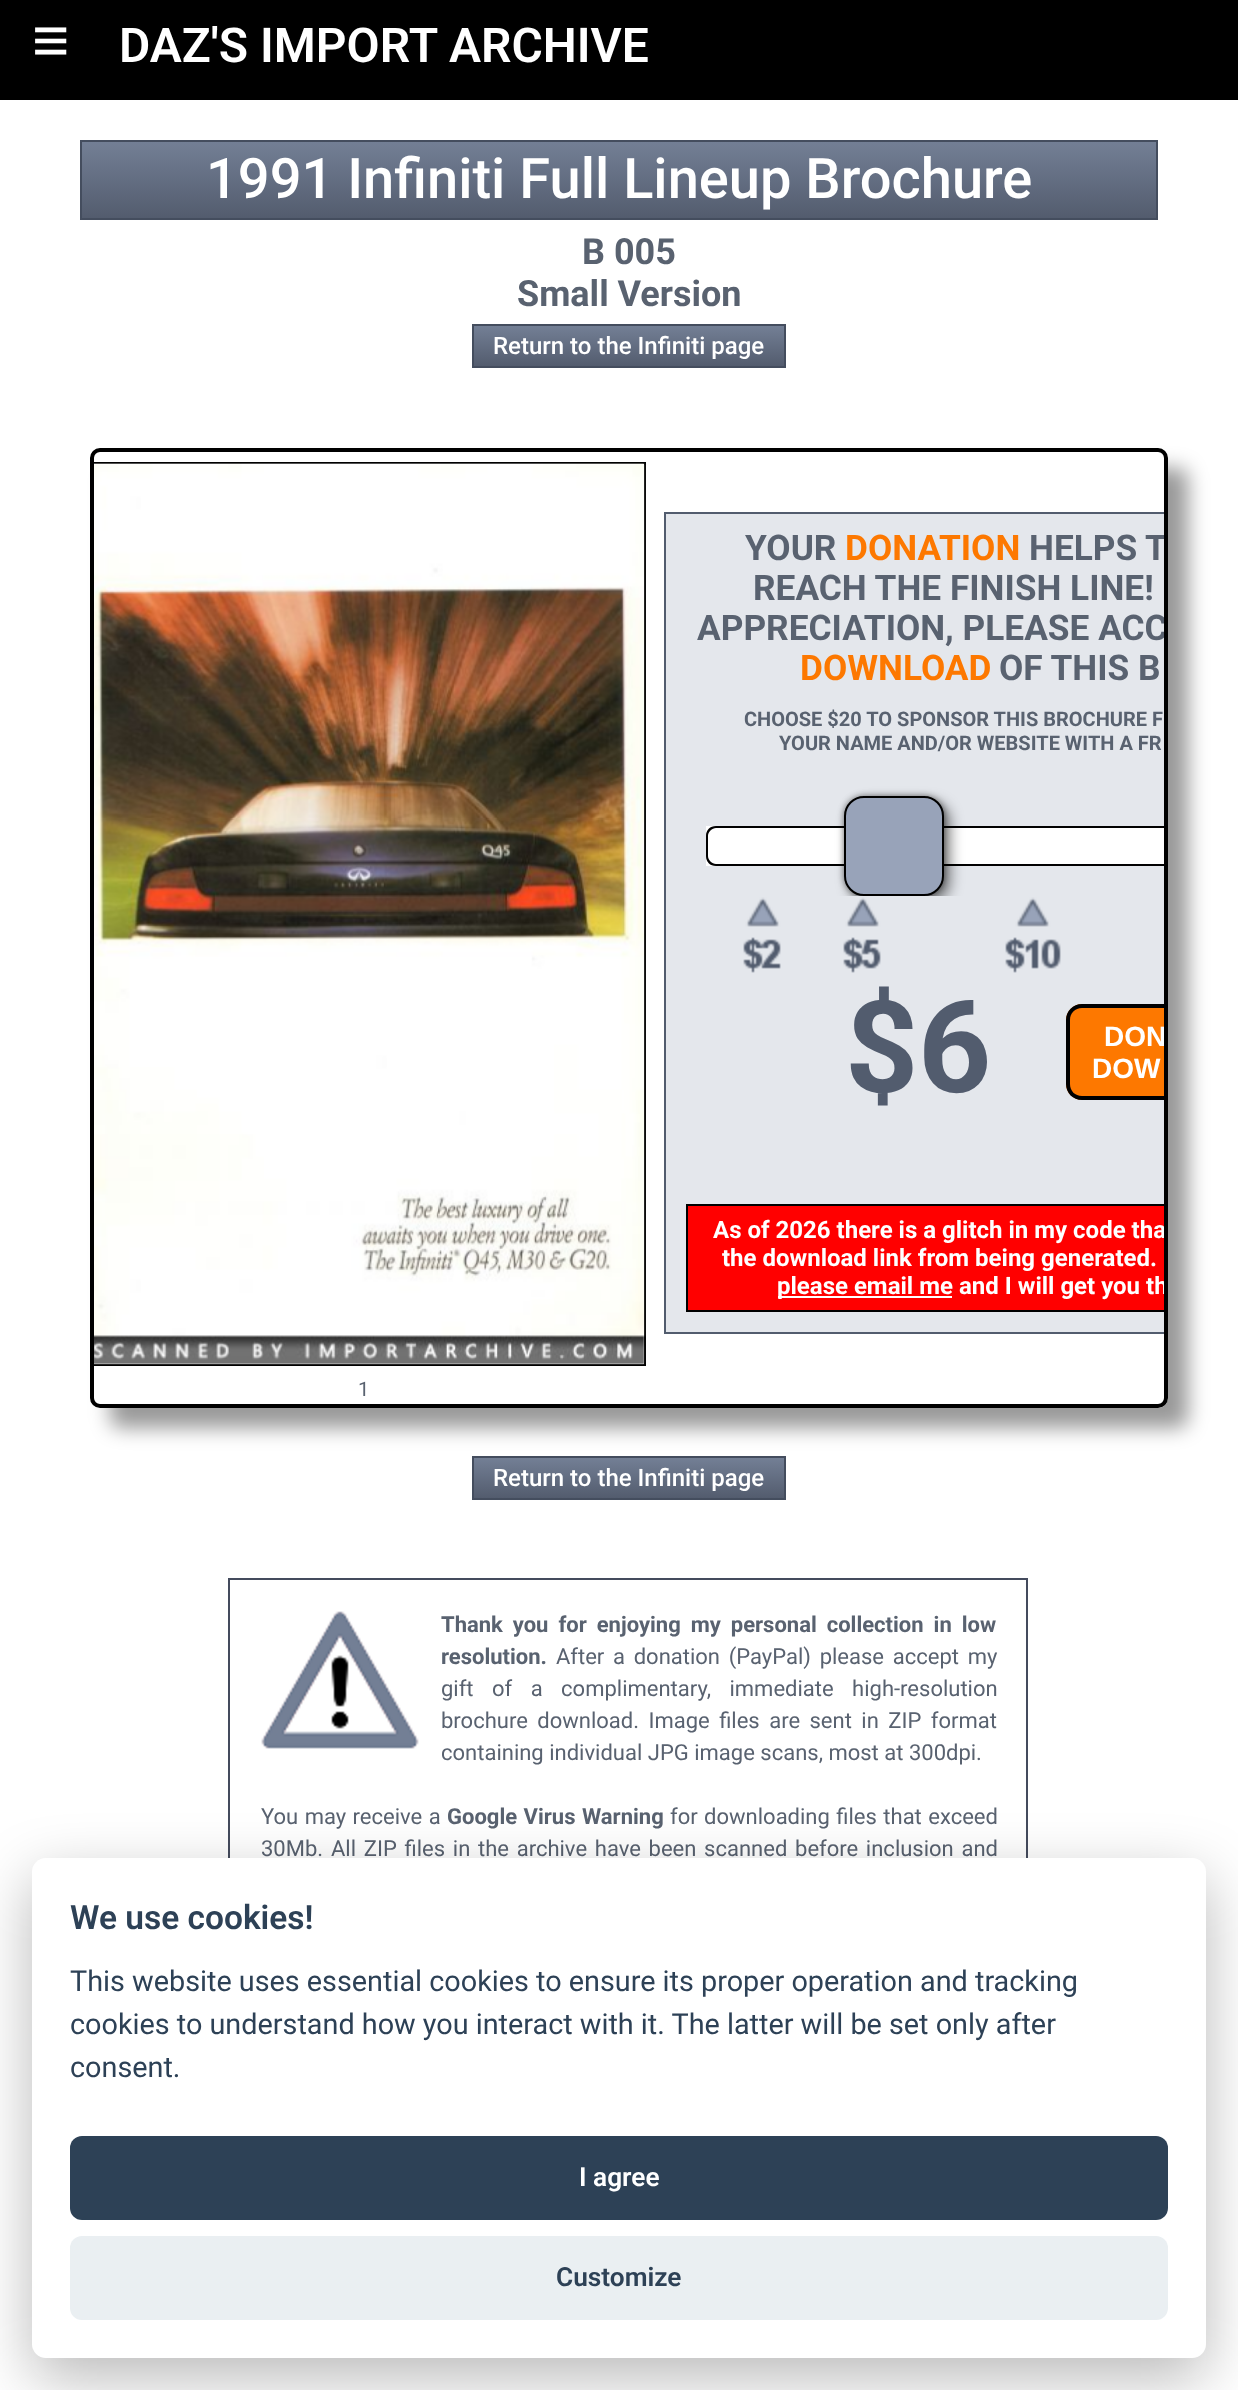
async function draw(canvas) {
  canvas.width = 1238
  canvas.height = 2390
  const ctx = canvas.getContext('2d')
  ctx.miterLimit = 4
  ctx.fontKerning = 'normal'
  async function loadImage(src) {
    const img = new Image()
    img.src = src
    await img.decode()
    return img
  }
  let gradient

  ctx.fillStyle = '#fff'
  ctx.fillRect(0, 0, 1238, 2390)
  ctx.fillStyle = '#000'
  ctx.fillRect(0, 0, 1238, 100)
  ctx.font = '64px Liberation Sans'
  ctx.fillStyle = '#fff'
  ctx.fillText('≡', 32, 62)
  ctx.font = '600 48px Roboto'
  ctx.fillText('DAZ\'S IMPORT ARCHIVE', 119, 62)
  gradient = ctx.createLinearGradient(619, 142, 619, 218)
  gradient.addColorStop(0, '#737f95')
  gradient.addColorStop(1, '#535c6e')
  ctx.fillStyle = gradient
  ctx.fillRect(82, 142, 1074, 76)
  ctx.strokeStyle = '#444d5e'
  ctx.lineWidth = 2
  ctx.strokeRect(81, 141, 1076, 78)
  ctx.font = '500 56px Roboto'
  ctx.fillStyle = '#fff'
  ctx.fillText('1991 Infiniti Full Lineup Brochure', 206, 198)
  ctx.font = 'bold 36px Roboto'
  ctx.fillStyle = '#596270'
  ctx.fillText('B 005', 582, 264)
  ctx.fillText('Small Version', 517, 306)
  gradient = ctx.createLinearGradient(629, 326, 629, 366)
  gradient.addColorStop(0, '#737f95')
  gradient.addColorStop(1, '#535c6e')
  ctx.fillStyle = gradient
  ctx.fillRect(474, 326, 310, 40)
  ctx.strokeRect(473, 325, 312, 42)
  ctx.font = '500 24px Roboto'
  ctx.fillStyle = '#fff'
  ctx.fillText('Return to the Infiniti page', 493, 354)
  gradient = ctx.createLinearGradient(629, 1458, 629, 1498)
  gradient.addColorStop(0, '#737f95')
  gradient.addColorStop(1, '#535c6e')
  ctx.fillStyle = gradient
  ctx.fillRect(474, 1458, 310, 40)
  ctx.strokeRect(473, 1457, 312, 42)
  ctx.save()
  ctx.beginPath()
  ctx.moveTo(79, 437)
  ctx.lineTo(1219, 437)
  ctx.lineTo(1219, 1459)
  ctx.lineTo(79, 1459)
  ctx.closePath()
  ctx.moveTo(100, 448)
  ctx.lineTo(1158, 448)
  ctx.bezierCurveTo(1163.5, 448, 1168, 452.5, 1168, 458)
  ctx.lineTo(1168, 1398)
  ctx.bezierCurveTo(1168, 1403.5, 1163.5, 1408, 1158, 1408)
  ctx.lineTo(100, 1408)
  ctx.bezierCurveTo(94.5, 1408, 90, 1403.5, 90, 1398)
  ctx.lineTo(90, 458)
  ctx.bezierCurveTo(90, 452.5, 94.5, 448, 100, 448)
  ctx.closePath()
  ctx.clip('evenodd')
  ctx.fillStyle = '#00000066'
  ctx.filter = 'blur(10px)'
  ctx.beginPath()
  ctx.roundRect(110, 468, 1078, 960, 10)
  ctx.fill()
  ctx.filter = 'none'
  ctx.restore()
  ctx.beginPath()
  ctx.roundRect(92, 450, 1074, 956, 8)
  ctx.strokeStyle = '#000'
  ctx.lineWidth = 4
  ctx.stroke()
  ctx.fillStyle = '#e4e7ec'
  ctx.fillRect(666, 514, 498, 818)
  ctx.fillStyle = '#525c6e'
  ctx.beginPath()
  ctx.moveTo(664, 512)
  ctx.lineTo(664, 1334)
  ctx.lineTo(1164, 1334)
  ctx.lineTo(1164, 1332)
  ctx.lineTo(666, 1332)
  ctx.lineTo(666, 514)
  ctx.lineTo(1164, 514)
  ctx.lineTo(1164, 512)
  ctx.closePath()
  ctx.fill()
  ctx.font = 'bold 35.25px Roboto'
  ctx.fillStyle = '#596270'
  ctx.fillText('YOUR', 745, 560)
  ctx.fillStyle = '#fd7800'
  ctx.fillText('DONATION', 845, 560)
  ctx.save()
  ctx.beginPath()
  ctx.roundRect(94, 452, 1070, 952, 6)
  ctx.clip()
  ctx.fillStyle = '#596270'
  ctx.fillText('HELPS T', 1029, 560)
  ctx.restore()
  ctx.fillStyle = '#596270'
  ctx.fillText('REACH THE FINISH LINE!', 753, 600)
  ctx.save()
  ctx.beginPath()
  ctx.roundRect(94, 452, 1070, 952, 6)
  ctx.clip()
  ctx.fillText('APPRECIATION, PLEASE ACC', 697, 640)
  ctx.restore()
  ctx.fillStyle = '#fd7800'
  ctx.fillText('DOWNLOAD', 800, 680)
  ctx.fillStyle = '#596270'
  ctx.fillText('OF THIS B', 999, 680)
  ctx.font = 'bold 20px Roboto'
  ctx.fillText('CHOOSE $20 TO SPONSOR THIS BROCHURE F', 744, 726)
  ctx.fillText('YOUR NAME AND/OR WEBSITE WITH A FR', 779, 750)
  ctx.fillStyle = '#fff'
  ctx.fillRect(706, 826, 458, 40)
  ctx.fillStyle = '#010101'
  ctx.beginPath()
  ctx.moveTo(716, 826)
  ctx.bezierCurveTo(710, 826, 706, 830, 706, 836)
  ctx.lineTo(706, 856)
  ctx.bezierCurveTo(706, 862, 710, 866, 716, 866)
  ctx.lineTo(1164, 866)
  ctx.lineTo(1164, 864)
  ctx.lineTo(716, 864)
  ctx.bezierCurveTo(712, 864, 708, 860, 708, 856)
  ctx.lineTo(708, 836)
  ctx.bezierCurveTo(708, 832, 712, 828, 716, 828)
  ctx.lineTo(1164, 828)
  ctx.lineTo(1164, 826)
  ctx.closePath()
  ctx.fill()
  ctx.fillStyle = '#0d0d0d80'
  ctx.filter = 'blur(3px)'
  ctx.beginPath()
  ctx.roundRect(844, 796, 100, 100, 20)
  ctx.fill()
  ctx.filter = 'none'
  ctx.fillStyle = '#00000080'
  ctx.filter = 'blur(7px)'
  ctx.beginPath()
  ctx.roundRect(850, 802, 100, 100, 20)
  ctx.fill()
  ctx.filter = 'none'
  ctx.fillStyle = '#98a3b9'
  ctx.beginPath()
  ctx.roundRect(845, 797, 98, 98, 19)
  ctx.fill()
  ctx.lineWidth = 2
  ctx.stroke()
  ctx.drawImage(await loadImage('image0.png'), 743, 896, 318, 77)
  ctx.font = 'bold 128px Roboto'
  ctx.fillStyle = '#525c6e'
  ctx.fillText('$', 845, 1092)
  ctx.letterSpacing = '-12px'
  ctx.fillText('6', 918, 1092)
  ctx.fillStyle = '#fd7800'
  ctx.beginPath()
  ctx.roundRect(1066, 1004, 98, 96, [16, 0, 0, 16])
  ctx.fill()
  ctx.fillStyle = '#000'
  ctx.beginPath()
  ctx.moveTo(1082, 1004)
  ctx.bezierCurveTo(1073, 1004, 1066, 1011, 1066, 1020)
  ctx.lineTo(1066, 1084)
  ctx.bezierCurveTo(1066, 1093, 1073, 1100, 1082, 1100)
  ctx.lineTo(1164, 1100)
  ctx.lineTo(1164, 1096)
  ctx.lineTo(1082, 1096)
  ctx.bezierCurveTo(1075, 1096, 1070, 1091, 1070, 1084)
  ctx.lineTo(1070, 1020)
  ctx.bezierCurveTo(1070, 1013, 1075, 1008, 1082, 1008)
  ctx.lineTo(1164, 1008)
  ctx.lineTo(1164, 1004)
  ctx.closePath()
  ctx.fill()
  ctx.save()
  ctx.beginPath()
  ctx.roundRect(94, 452, 1070, 952, 6)
  ctx.clip()
  ctx.letterSpacing = '0px'
  ctx.font = 'bold 28px Liberation Sans'
  ctx.fillStyle = '#fff'
  ctx.fillText('DON', 1104, 1046)
  ctx.restore()
  ctx.letterSpacing = '0px'
  ctx.font = 'bold 28px Liberation Sans'
  ctx.fillStyle = '#fff'
  ctx.fillText('DOW', 1092, 1078)
  ctx.fillStyle = '#f00'
  ctx.fillRect(688, 1206, 476, 104)
  ctx.fillStyle = '#000'
  ctx.beginPath()
  ctx.moveTo(686, 1204)
  ctx.lineTo(686, 1312)
  ctx.lineTo(1164, 1312)
  ctx.lineTo(1164, 1310)
  ctx.lineTo(688, 1310)
  ctx.lineTo(688, 1206)
  ctx.lineTo(1164, 1206)
  ctx.lineTo(1164, 1204)
  ctx.closePath()
  ctx.fill()
  ctx.save()
  ctx.beginPath()
  ctx.roundRect(94, 452, 1070, 952, 6)
  ctx.clip()
  ctx.font = 'bold 24px Roboto'
  ctx.fillStyle = '#fff'
  ctx.fillText('As of 2026 there is a glitch in my code tha', 713, 1238)
  ctx.restore()
  ctx.font = 'bold 24px Roboto'
  ctx.fillStyle = '#fff'
  ctx.fillText('the download link from being generated.', 722, 1266)
  ctx.fillRect(778, 1296, 174, 2)
  ctx.fillText('please email me', 777, 1294)
  ctx.save()
  ctx.beginPath()
  ctx.roundRect(94, 452, 1070, 952, 6)
  ctx.clip()
  ctx.fillText('and I will get you th', 959, 1294)
  ctx.restore()
  ctx.fillStyle = '#000'
  ctx.beginPath()
  ctx.moveTo(94, 1366)
  ctx.lineTo(646, 1366)
  ctx.lineTo(646, 462)
  ctx.lineTo(94, 462)
  ctx.lineTo(94, 464)
  ctx.lineTo(644, 464)
  ctx.lineTo(644, 1364)
  ctx.lineTo(94, 1364)
  ctx.closePath()
  ctx.fill()
  ctx.drawImage(await loadImage('image1.png'), 94, 463, 552, 902)
  ctx.font = '20px Roboto'
  ctx.fillStyle = '#596270'
  ctx.fillText('1', 358, 1396)
  ctx.font = '500 24px Roboto'
  ctx.fillStyle = '#fff'
  ctx.fillText('Return to the Infiniti page', 493, 1486)
  ctx.strokeStyle = '#444b5d'
  ctx.strokeRect(229, 1579, 798, 574)
  ctx.drawImage(await loadImage('image2.png'), 261, 1611, 158, 138)
  ctx.wordSpacing = '4.5px'
  ctx.font = 'bold 22px Roboto'
  ctx.fillStyle = '#596270'
  ctx.fillText('Thank you for enjoying my personal collection in low', 441, 1632)
  ctx.wordSpacing = '0px'
  ctx.fillText('resolution.', 441, 1664)
  ctx.wordSpacing = '3.25px'
  ctx.font = '22px Roboto'
  ctx.fillText('After a donation (PayPal) please accept my', 556, 1664)
  ctx.wordSpacing = '13px'
  ctx.fillText('gift of a complimentary, immediate high-resolution', 441, 1696)
  ctx.wordSpacing = '4px'
  ctx.fillText('brochure download. Image files are sent in ZIP format', 441, 1728)
  ctx.wordSpacing = '0px'
  ctx.fillText('containing individual JPG image scans, most at 300dpi.', 441, 1760)
  ctx.wordSpacing = '1px'
  ctx.fillText('You may receive a', 261, 1824)
  ctx.font = 'bold 22px Roboto'
  ctx.fillText('Google Virus Warning', 447, 1824)
  ctx.font = '22px Roboto'
  ctx.fillText('for downloading files that exceed', 670, 1824)
  ctx.wordSpacing = '0px'
  ctx.fillText('30Mb.', 261, 1856)
  ctx.wordSpacing = '2.25px'
  ctx.fillText('All ZIP files in the archive have been scanned before inclusion and', 331, 1856)
  ctx.fillStyle = '#02020347'
  ctx.filter = 'blur(30px)'
  ctx.beginPath()
  ctx.roundRect(32, 1878, 1174, 500, 14)
  ctx.fill()
  ctx.filter = 'none'
  ctx.fillStyle = '#fff'
  ctx.beginPath()
  ctx.roundRect(32, 1858, 1174, 500, 14)
  ctx.fill()
  ctx.wordSpacing = '0px'
  ctx.font = '600 33.5px Roboto'
  ctx.fillStyle = '#2d4156'
  ctx.fillText('We use cookies!', 70, 1929)
  ctx.font = '28.8px Roboto'
  ctx.fillText('This website uses essential cookies to ensure its proper operation and tracking', 70, 1991)
  ctx.fillText('cookies to understand how you interact with it. The latter will be set only after', 70, 2034)
  ctx.fillText('consent.', 70, 2077)
  ctx.beginPath()
  ctx.roundRect(70, 2136, 1098, 84, 12)
  ctx.fill()
  ctx.font = '600 26.25px Roboto'
  ctx.fillStyle = '#fff'
  ctx.fillText('I agree', 579, 2186)
  ctx.fillStyle = '#eaeff2'
  ctx.beginPath()
  ctx.roundRect(70, 2236, 1098, 84, 12)
  ctx.fill()
  ctx.fillStyle = '#2d4156'
  ctx.fillText('Customize', 556, 2286)
}

draw(document.querySelector('canvas'))
